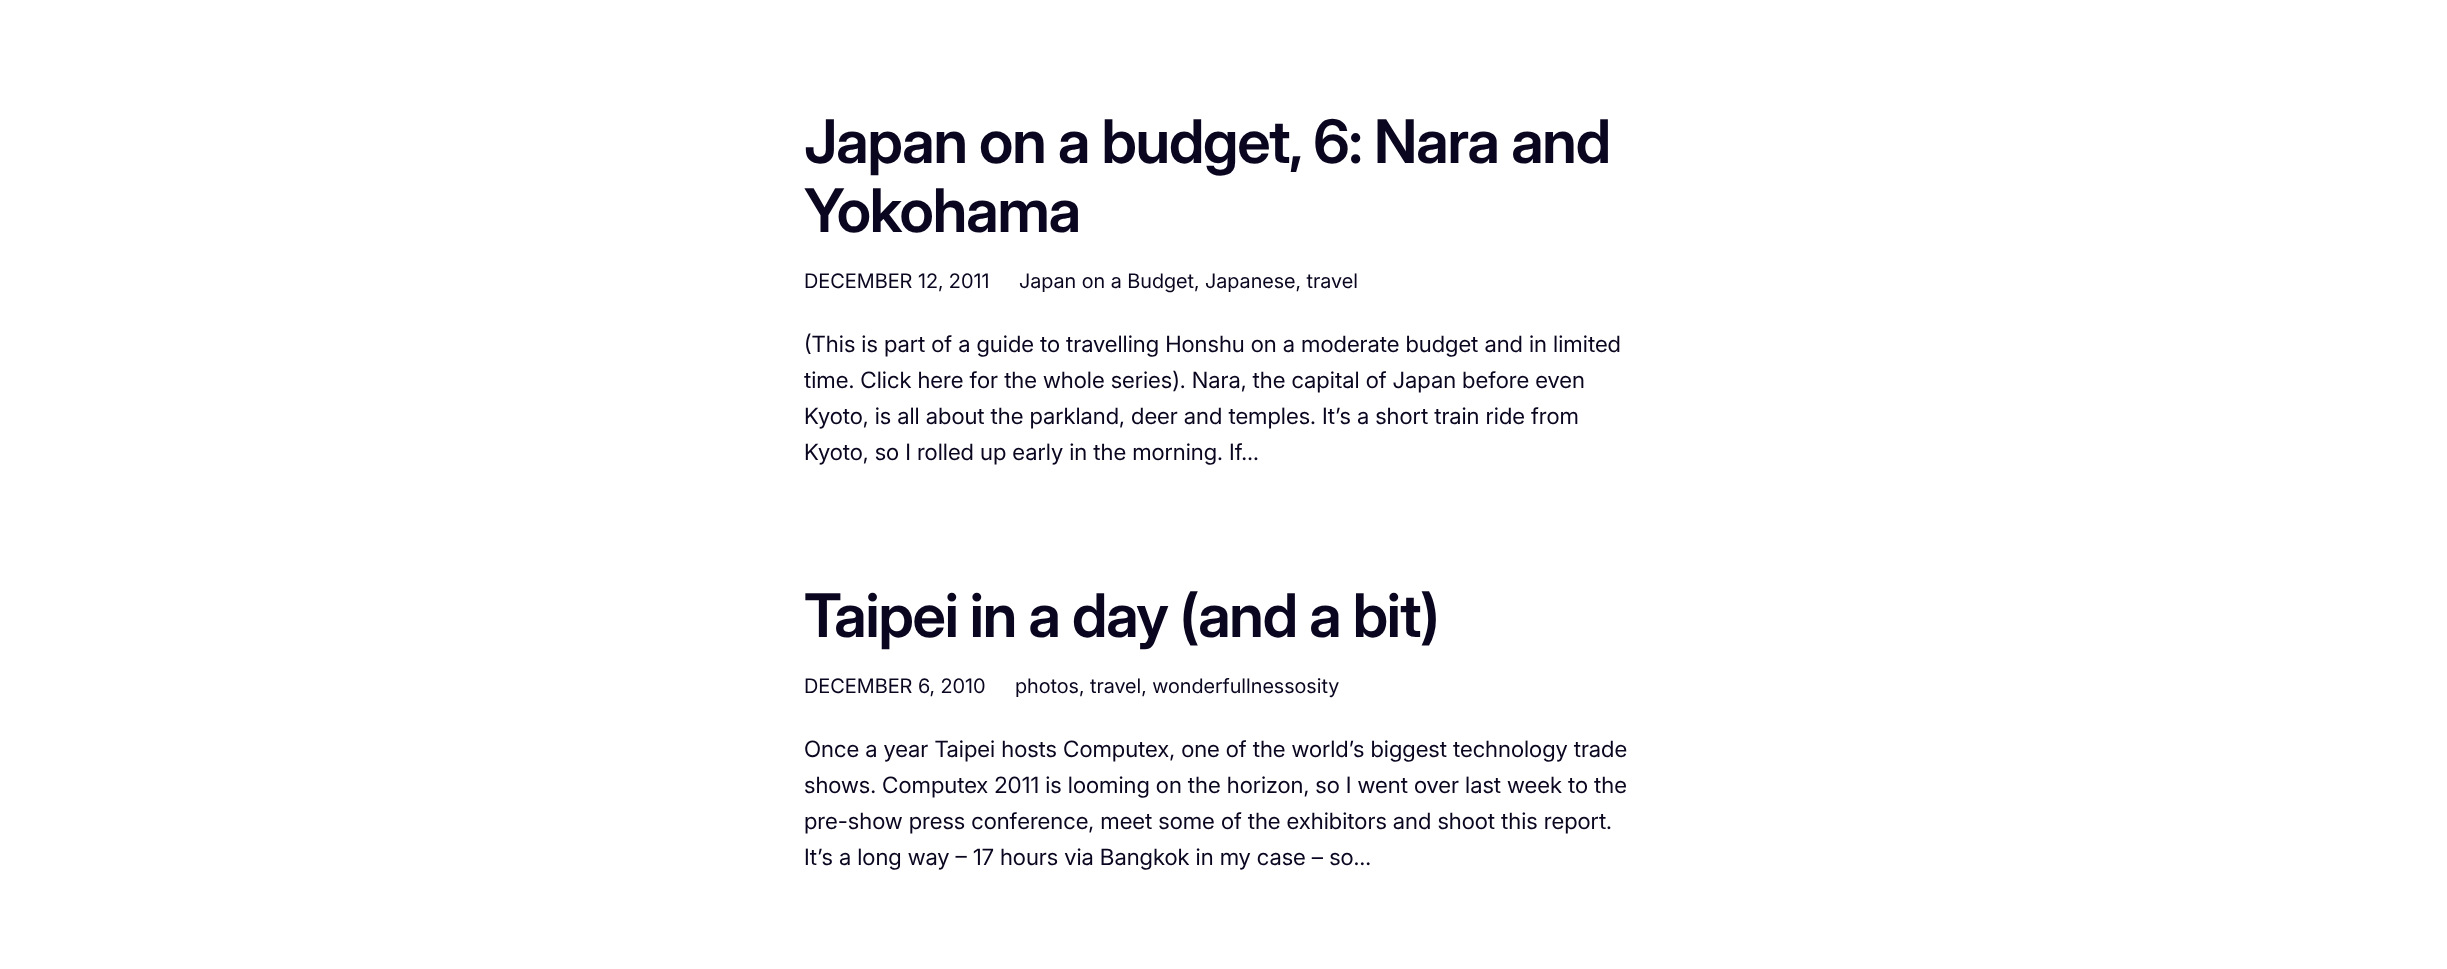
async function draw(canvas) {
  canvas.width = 2447
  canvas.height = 969
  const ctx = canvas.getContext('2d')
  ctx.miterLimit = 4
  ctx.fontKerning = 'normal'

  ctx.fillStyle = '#fff'
  ctx.fillRect(0, 0, 2447, 969)
  ctx.letterSpacing = '-1.2px'
  ctx.font = '600 60px Inter'
  ctx.fillStyle = '#0b0620'
  ctx.fillText('Japan on a budget, 6: Nara and', 804, 163)
  ctx.fillText('Yokohama', 804, 232)
  ctx.letterSpacing = '0px'
  ctx.font = '20px Inter'
  ctx.fillText('DECEMBER 12, 2011', 804, 288)
  ctx.fillText('Japan on a Budget, Japanese, travel', 1019, 288)
  ctx.font = '22.5px "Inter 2"'
  ctx.fillText('(This is part of a guide to travelling Honshu on a moderate budget and in limited', 804, 352)
  ctx.fillText('time. Click here for the whole series). Nara, the capital of Japan before even', 804, 388)
  ctx.fillText('Kyoto, is all about the parkland, deer and temples. It’s a short train ride from', 804, 424)
  ctx.fillText('Kyoto, so I rolled up early in the morning. If…', 804, 460)
  ctx.letterSpacing = '-1.2px'
  ctx.font = '600 60px Inter'
  ctx.fillText('Taipei in a day (and a bit)', 804, 637)
  ctx.letterSpacing = '0px'
  ctx.font = '20px Inter'
  ctx.fillText('DECEMBER 6, 2010', 804, 693)
  ctx.fillText('photos, travel, wonderfullnessosity', 1015, 693)
  ctx.font = '22.5px "Inter 2"'
  ctx.fillText('Once a year Taipei hosts Computex, one of the world’s biggest technology trade', 804, 757)
  ctx.fillText('shows. Computex 2011 is looming on the horizon, so I went over last week to the', 804, 793)
  ctx.fillText('pre-show press conference, meet some of the exhibitors and shoot this report.', 804, 829)
  ctx.fillText('It’s a long way – 17 hours via Bangkok in my case – so…', 804, 865)
}

draw(document.querySelector('canvas'))
